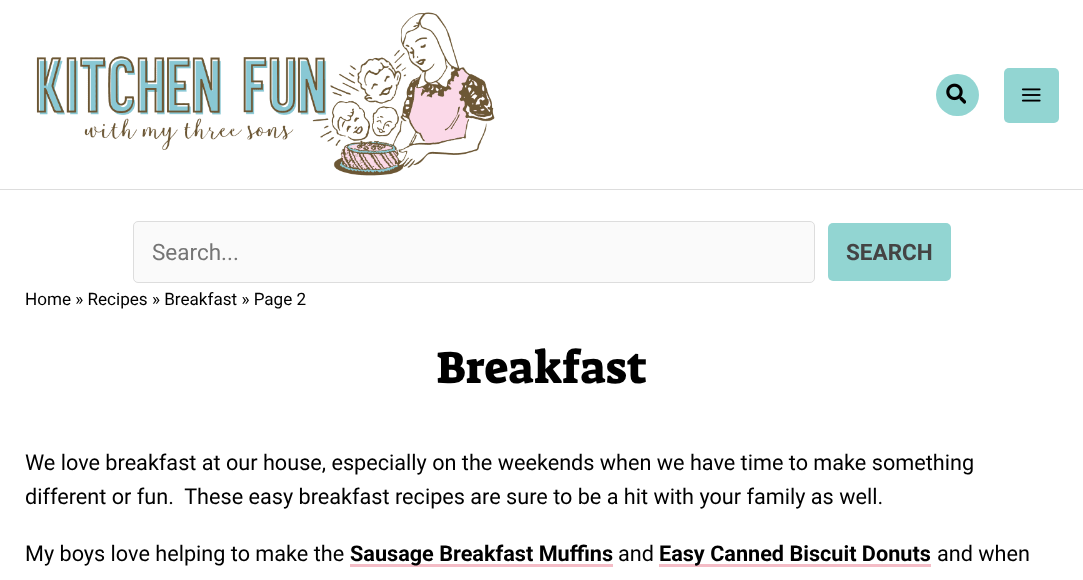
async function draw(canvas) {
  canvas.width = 1083
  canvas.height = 580
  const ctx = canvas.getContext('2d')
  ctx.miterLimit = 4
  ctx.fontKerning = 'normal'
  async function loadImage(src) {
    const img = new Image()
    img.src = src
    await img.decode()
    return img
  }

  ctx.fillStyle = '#fff'
  ctx.fillRect(0, 0, 1083, 580)
  ctx.fillStyle = '#ddd'
  ctx.fillRect(0, 189, 1083, 1)
  ctx.drawImage(await loadImage('image0.png'), 36, 12, 459, 164)
  ctx.fillStyle = '#92d5d2'
  ctx.beginPath()
  ctx.roundRect(936, 74, 43, 42, 21)
  ctx.fill()
  ctx.drawImage(await loadImage('image1.png'), 946, 83, 20, 21)
  ctx.beginPath()
  ctx.roundRect(1004, 68, 55, 55, 5)
  ctx.fill()
  ctx.drawImage(await loadImage('image2.png'), 1021, 88, 20, 14)
  ctx.fillStyle = '#fafafa'
  ctx.beginPath()
  ctx.roundRect(133.5, 221.5, 681, 61, 4.5)
  ctx.fill()
  ctx.strokeStyle = '#ddd'
  ctx.stroke()
  ctx.font = '22.5px Roboto'
  ctx.fillStyle = '#757575'
  ctx.fillText('Search...', 152, 260)
  ctx.fillStyle = '#92d5d2'
  ctx.beginPath()
  ctx.roundRect(828, 223, 123, 58, 5)
  ctx.fill()
  ctx.font = 'bold 22.5px Roboto'
  ctx.fillStyle = '#444'
  ctx.fillText('SEARCH', 846, 260)
  ctx.font = '17.1px Roboto'
  ctx.fillStyle = '#000'
  ctx.fillText('Home » Recipes » Breakfast » Page 2', 25, 305)
  ctx.font = '45.5px Suez One'
  ctx.fillText('Breakfast', 436, 383)
  ctx.font = '21.65px Roboto'
  ctx.fillText('We love breakfast at our house, especially on the weekends when we have time to make something', 25, 470)
  ctx.fillText('different or fun.  These easy breakfast recipes are sure to be a hit with your family as well.', 25, 504)
  ctx.fillText('My boys love helping to make the', 25, 561)
  ctx.fillStyle = '#f4bcc6'
  ctx.fillRect(350, 564, 263, 3)
  ctx.font = 'bold 21.65px Roboto'
  ctx.fillStyle = '#000'
  ctx.fillText('Sausage Breakfast Muffins', 350, 561)
  ctx.font = '21.65px Roboto'
  ctx.fillText('and', 618, 561)
  ctx.fillStyle = '#f4bcc6'
  ctx.fillRect(659, 564, 272, 3)
  ctx.font = 'bold 21.65px Roboto'
  ctx.fillStyle = '#000'
  ctx.fillText('Easy Canned Biscuit Donuts', 659, 561)
  ctx.font = '21.65px Roboto'
  ctx.fillText('and when', 937, 561)
}

draw(document.querySelector('canvas'))
